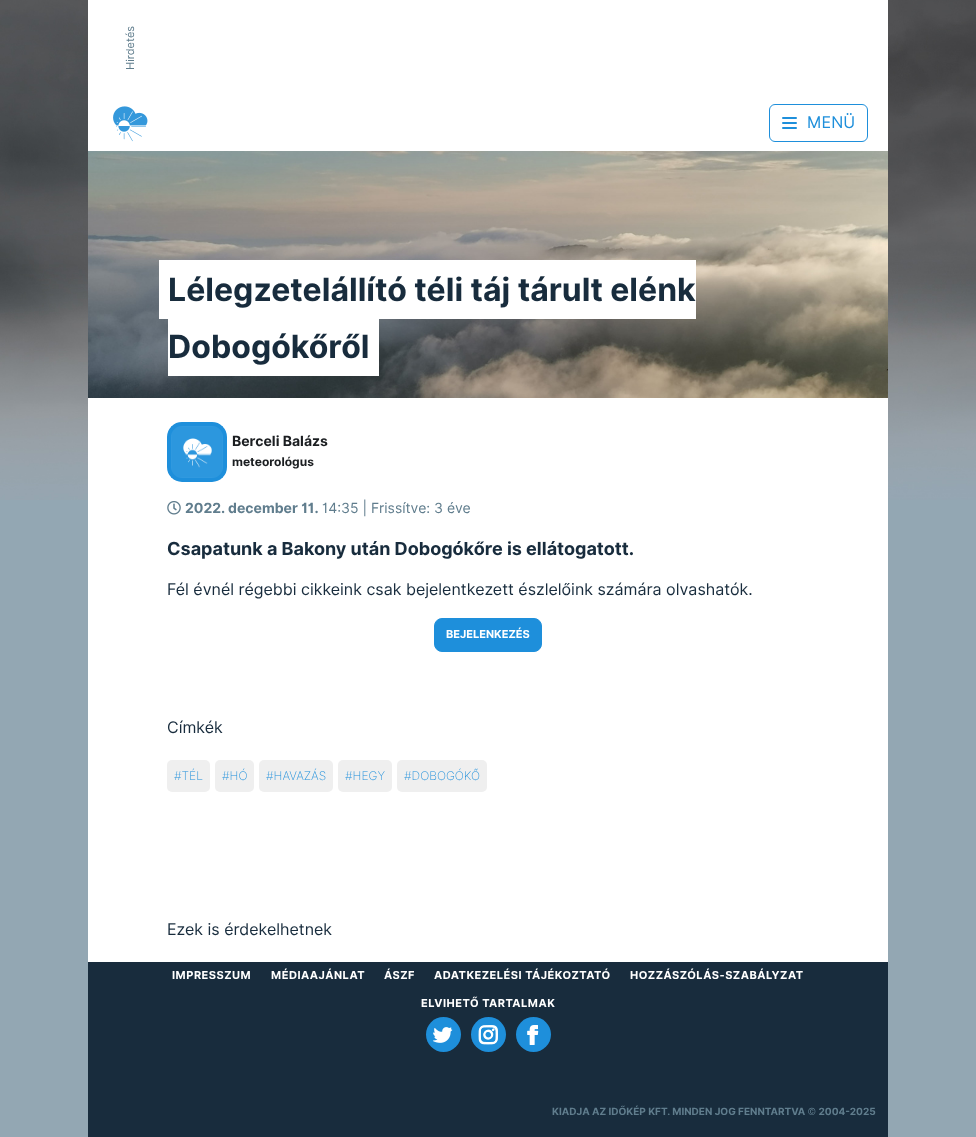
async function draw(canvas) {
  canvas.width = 976
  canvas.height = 1137
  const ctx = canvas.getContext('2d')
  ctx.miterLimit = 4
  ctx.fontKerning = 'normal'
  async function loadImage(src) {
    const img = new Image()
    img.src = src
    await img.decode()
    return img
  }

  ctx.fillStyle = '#93a7b3'
  ctx.fillRect(0, 0, 976, 1137)
  ctx.drawImage(await loadImage('image0.png'), 0, 0, 976, 500)
  ctx.fillStyle = '#fff'
  ctx.fillRect(88, 0, 800, 151)
  ctx.font = '11px Inter'
  ctx.fillStyle = '#607d8d'
  ctx.save()
  ctx.translate(134, 70)
  ctx.rotate(-90 * Math.PI / 180)
  ctx.fillText('Hirdetés', 0, 0)
  ctx.restore()
  ctx.drawImage(await loadImage('image1.png'), 113, 106, 35, 36)
  ctx.beginPath()
  ctx.roundRect(769.5, 104.5, 98, 37, 5.5)
  ctx.strokeStyle = '#1e8fdb'
  ctx.stroke()
  ctx.fillStyle = '#1e8fdb'
  ctx.beginPath()
  ctx.roundRect(782, 117, 15, 2, 1)
  ctx.fill()
  ctx.beginPath()
  ctx.roundRect(782, 122, 15, 2, 1)
  ctx.fill()
  ctx.beginPath()
  ctx.roundRect(782, 127, 15, 2, 1)
  ctx.fill()
  ctx.font = '16px Inter'
  ctx.fillText('MENÜ', 807, 128)
  ctx.drawImage(await loadImage('image2.png'), 88, 151, 800, 247)
  ctx.fillStyle = '#fff'
  ctx.fillRect(159, 260, 537, 59)
  ctx.font = 'bold 32px Inter'
  ctx.fillStyle = '#182c3d'
  ctx.fillText('Lélegzetelállító téli táj tárult elénk', 168, 301)
  ctx.fillStyle = '#fff'
  ctx.fillRect(168, 319, 211, 57)
  ctx.fillStyle = '#182c3d'
  ctx.fillText('Dobogókőről', 168, 358)
  ctx.fillStyle = '#fff'
  ctx.fillRect(88, 398, 800, 564)
  ctx.drawImage(await loadImage('image3.png'), 171, 426, 52, 52)
  ctx.beginPath()
  ctx.roundRect(169, 424, 56, 56, 13)
  ctx.lineWidth = 4
  ctx.stroke()
  ctx.font = 'bold 14px Inter'
  ctx.fillStyle = '#1b1e21'
  ctx.fillText('Berceli Balázs', 232, 446)
  ctx.font = 'bold 12px Inter'
  ctx.fillText('meteorológus', 232, 466)
  ctx.drawImage(await loadImage('image4.png'), 167, 501, 14, 14)
  ctx.font = 'bold 14px Inter'
  ctx.fillStyle = '#607d8d'
  ctx.fillText('2022. december 11.', 185, 513)
  ctx.font = '14px Inter'
  ctx.fillText('14:35 | Frissítve: 3 éve', 322, 513)
  ctx.font = 'bold 18px Inter'
  ctx.fillStyle = '#182c3d'
  ctx.fillText('Csapatunk a Bakony után Dobogókőre is ellátogatott.', 167, 555)
  ctx.font = '16px Inter'
  ctx.fillText('Fél évnél régebbi cikkeink csak bejelentkezett észlelőink számára olvashatók.', 167, 595)
  ctx.fillStyle = '#1e8fdb'
  ctx.beginPath()
  ctx.roundRect(434.5, 618.5, 107, 33, 7.5)
  ctx.fill()
  ctx.lineWidth = 1
  ctx.stroke()
  ctx.font = 'bold 11px Inter'
  ctx.fillStyle = '#fff'
  ctx.fillText('BEJELENKEZÉS', 446, 638)
  ctx.font = '16px Inter'
  ctx.fillStyle = '#182c3d'
  ctx.fillText('Címkék', 167, 733)
  ctx.fillStyle = '#efefef'
  ctx.beginPath()
  ctx.roundRect(167, 760, 43, 32, 5)
  ctx.fill()
  ctx.font = '200 12px Inter'
  ctx.fillStyle = '#1e8fdb'
  ctx.fillText('#TÉL', 174, 780)
  ctx.fillStyle = '#efefef'
  ctx.beginPath()
  ctx.roundRect(215, 760, 39, 32, 5)
  ctx.fill()
  ctx.fillStyle = '#1e8fdb'
  ctx.fillText('#HÓ', 222, 780)
  ctx.fillStyle = '#efefef'
  ctx.beginPath()
  ctx.roundRect(259, 760, 74, 32, 5)
  ctx.fill()
  ctx.fillStyle = '#1e8fdb'
  ctx.fillText('#HAVAZÁS', 266, 780)
  ctx.fillStyle = '#efefef'
  ctx.beginPath()
  ctx.roundRect(338, 760, 54, 32, 5)
  ctx.fill()
  ctx.fillStyle = '#1e8fdb'
  ctx.fillText('#HEGY', 345, 780)
  ctx.fillStyle = '#efefef'
  ctx.beginPath()
  ctx.roundRect(397, 760, 90, 32, 5)
  ctx.fill()
  ctx.fillStyle = '#1e8fdb'
  ctx.fillText('#DOBOGÓKŐ', 404, 780)
  ctx.font = '16px Inter'
  ctx.fillStyle = '#182c3d'
  ctx.fillText('Ezek is érdekelhetnek', 167, 935)
  ctx.fillRect(88, 962, 800, 175)
  ctx.letterSpacing = '0.5px'
  ctx.font = 'bold 11px Inter'
  ctx.fillStyle = '#fff'
  ctx.fillText('IMPRESSZUM', 172, 979)
  ctx.fillText('MÉDIAAJÁNLAT', 271, 979)
  ctx.fillText('ÁSZF', 384, 979)
  ctx.fillText('ADATKEZELÉSI TÁJÉKOZTATÓ', 434, 979)
  ctx.fillText('HOZZÁSZÓLÁS-SZABÁLYZAT', 630, 979)
  ctx.fillText('ELVIHETŐ TARTALMAK', 421, 1007)
  ctx.fillStyle = '#1e8fdb'
  ctx.beginPath()
  ctx.arc(443.5, 1034.5, 17.5, 0, 2 * Math.PI)
  ctx.fill()
  ctx.drawImage(await loadImage('image5.png'), 433, 1027, 20, 16)
  ctx.beginPath()
  ctx.arc(488.5, 1034.5, 17.5, 0, 2 * Math.PI)
  ctx.fill()
  ctx.drawImage(await loadImage('image6.png'), 478, 1025, 20, 20)
  ctx.beginPath()
  ctx.arc(533.5, 1034.5, 17.5, 0, 2 * Math.PI)
  ctx.fill()
  ctx.drawImage(await loadImage('image7.png'), 527, 1025, 12, 20)
  ctx.letterSpacing = '0px'
  ctx.font = 'bold 10px Inter'
  ctx.fillStyle = '#607d8d'
  ctx.fillText('KIADJA AZ IDŐKÉP KFT. MINDEN JOG FENNTARTVA © 2004-2025', 552, 1115)
}

draw(document.querySelector('canvas'))
